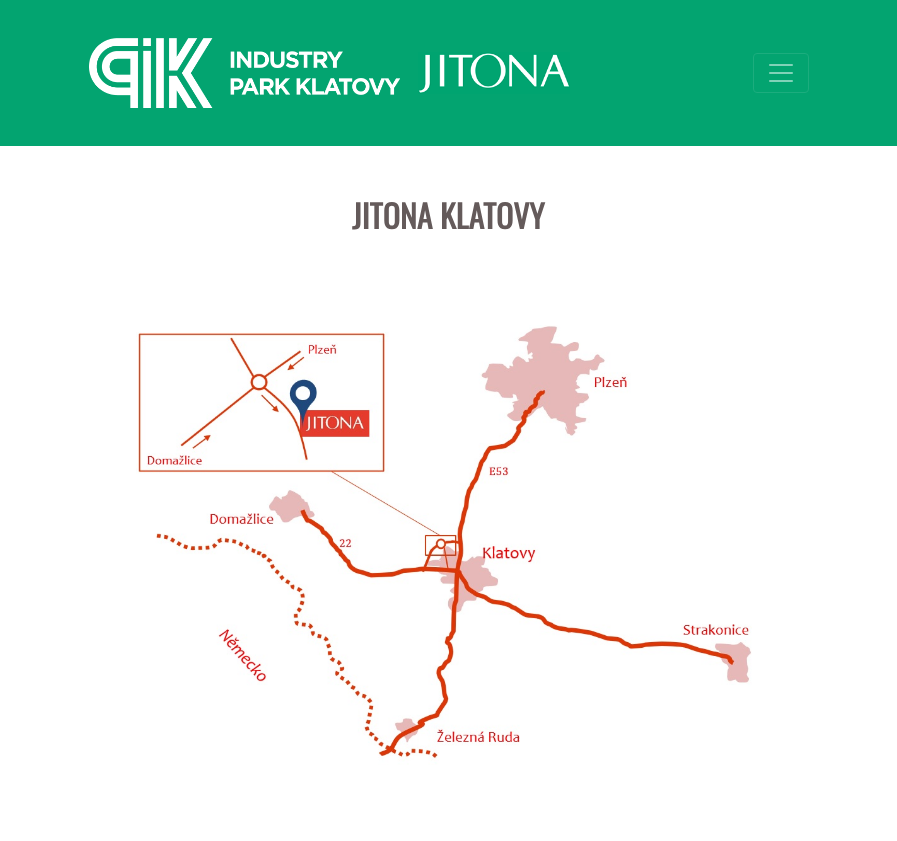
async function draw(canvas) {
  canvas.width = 897
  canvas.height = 841
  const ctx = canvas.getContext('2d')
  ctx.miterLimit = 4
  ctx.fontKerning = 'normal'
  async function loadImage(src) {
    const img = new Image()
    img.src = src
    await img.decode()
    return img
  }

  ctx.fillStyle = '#fff'
  ctx.fillRect(0, 0, 897, 841)
  ctx.fillStyle = '#03a470'
  ctx.fillRect(0, 0, 897, 146)
  ctx.drawImage(await loadImage('image0.png'), 89, 38, 311, 70)
  ctx.drawImage(await loadImage('image1.png'), 418, 52, 152, 42)
  ctx.beginPath()
  ctx.roundRect(753.5, 53.5, 55, 39, 3.5)
  ctx.strokeStyle = '#1cad7e'
  ctx.stroke()
  ctx.drawImage(await loadImage('image2.png'), 769, 64, 24, 18)
  ctx.font = 'bold 32px Oswald'
  ctx.fillStyle = '#645a5a'
  ctx.fillText('JITONA KLATOVY', 352, 229)
  ctx.drawImage(await loadImage('image3.png'), 136, 325, 616, 440)
}

draw(document.querySelector('canvas'))
